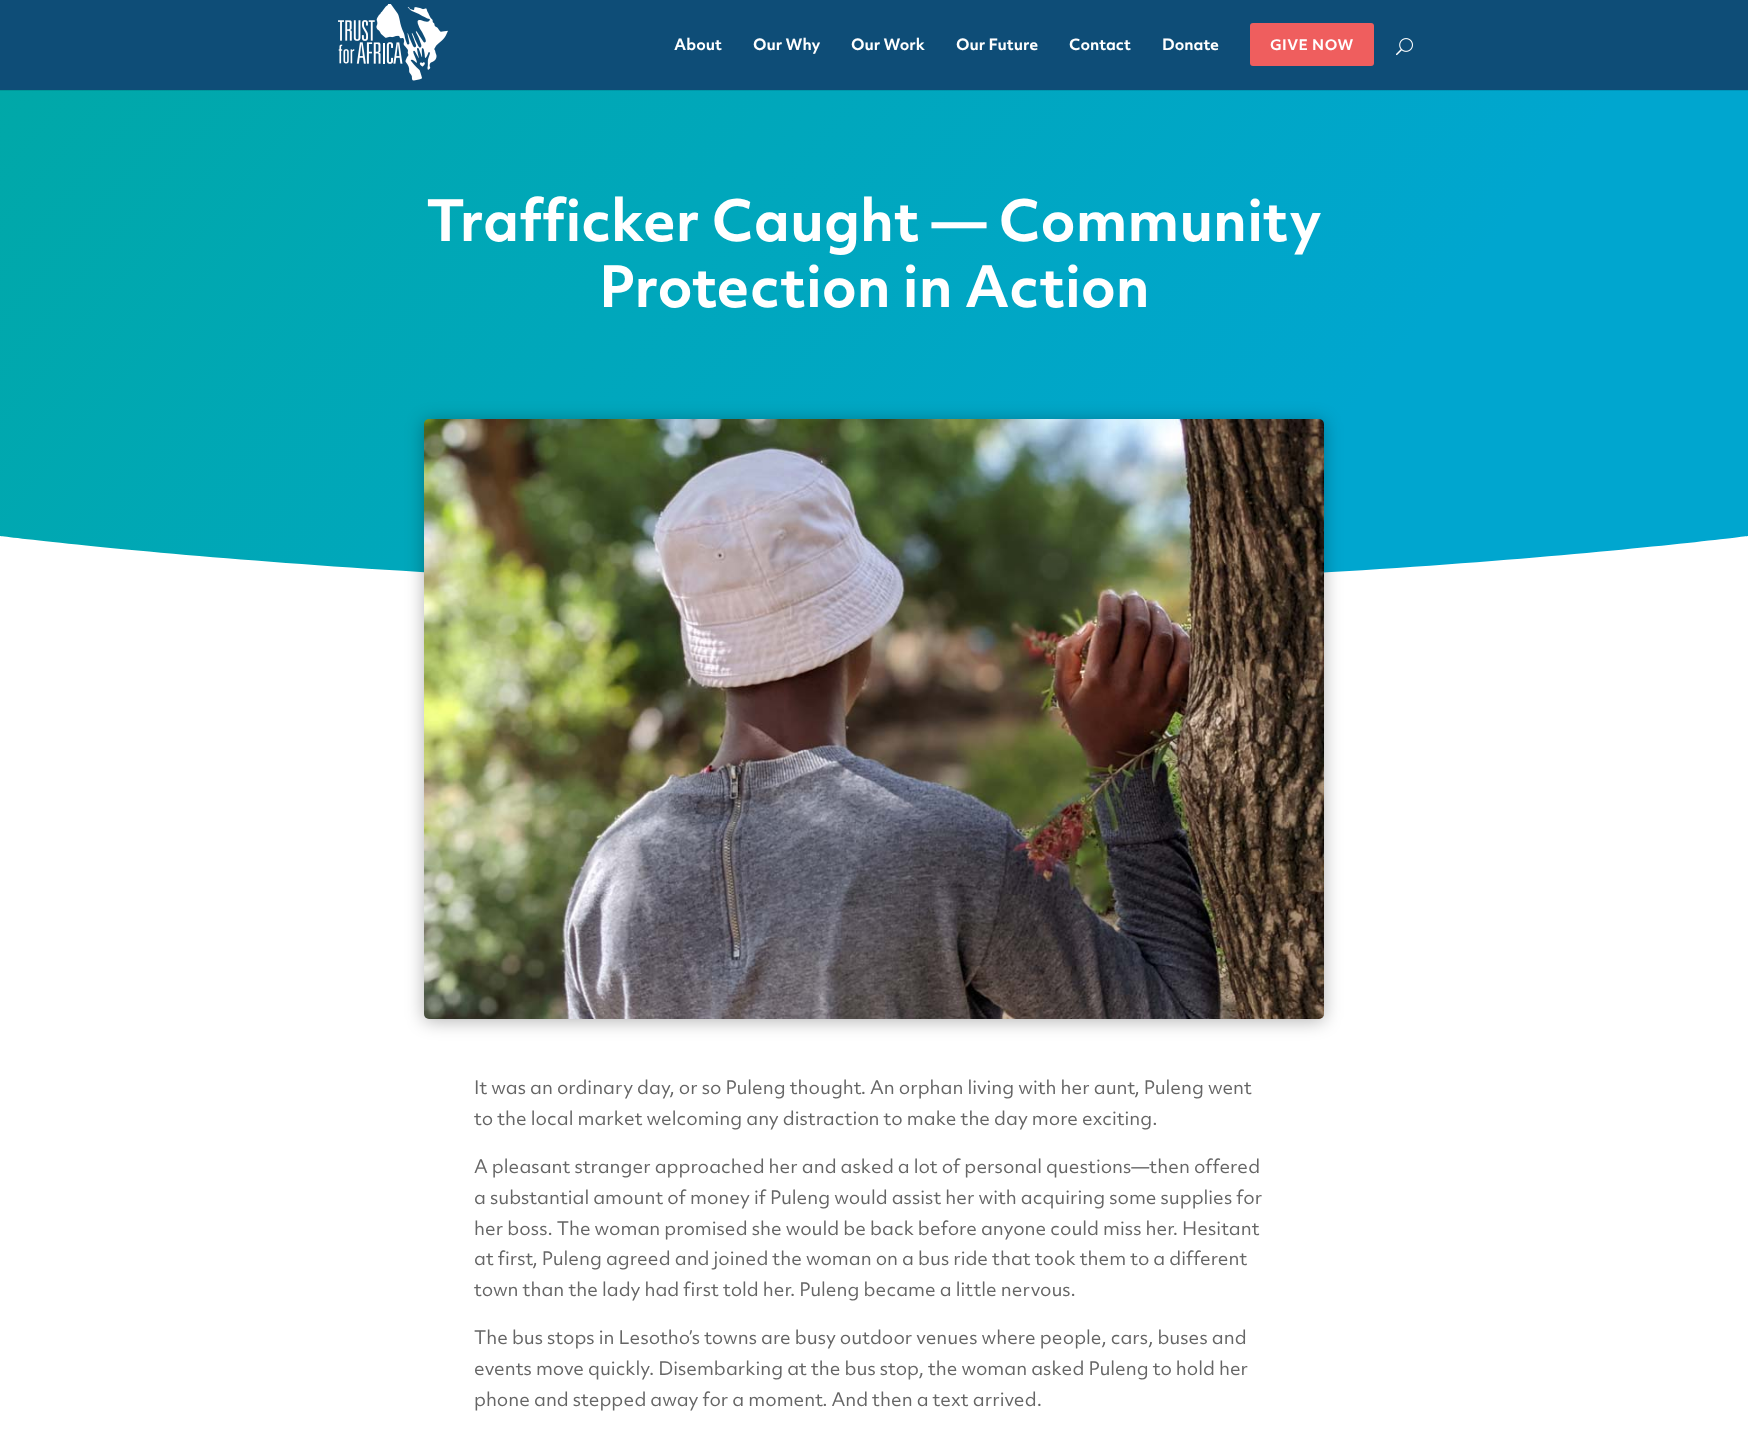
async function draw(canvas) {
  canvas.width = 1748
  canvas.height = 1435
  const ctx = canvas.getContext('2d')
  ctx.miterLimit = 4
  ctx.fontKerning = 'normal'
  async function loadImage(src) {
    const img = new Image()
    img.src = src
    await img.decode()
    return img
  }
  let gradient

  ctx.fillStyle = '#fff'
  ctx.fillRect(0, 0, 1748, 1435)
  ctx.fillStyle = '#0e4d77'
  ctx.fillRect(0, 0, 1748, 90)
  ctx.drawImage(await loadImage('image0.png'), 338, 4, 110, 77)
  ctx.font = 'bold 15px "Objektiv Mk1"'
  ctx.fillStyle = '#fff'
  ctx.fillText('About', 674, 50)
  ctx.fillText('Our Why', 753, 50)
  ctx.fillText('Our Work', 851, 50)
  ctx.fillText('Our Future', 956, 50)
  ctx.fillText('Contact', 1069, 50)
  ctx.fillText('Donate', 1162, 50)
  ctx.fillStyle = '#ef5e5e'
  ctx.beginPath()
  ctx.roundRect(1250, 23, 124, 43, 3)
  ctx.fill()
  ctx.letterSpacing = '0.5px'
  ctx.font = 'bold 14px "Objektiv Mk1"'
  ctx.fillStyle = '#fff'
  ctx.fillText('GIVE NOW', 1270, 50)
  ctx.drawImage(await loadImage('image1.png'), 1396, 38, 17, 18)
  gradient = ctx.createLinearGradient(239, -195, 1509, 871)
  gradient.addColorStop(0, '#00a8a8')
  gradient.addColorStop(0.75, '#00a6cf')
  ctx.fillStyle = gradient
  ctx.fillRect(0, 91, 1748, 482)
  gradient = ctx.createLinearGradient(239, -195, 1509, 871)
  gradient.addColorStop(0, '#009797')
  gradient.addColorStop(0.75, '#0095ba')
  ctx.fillStyle = gradient
  ctx.fillRect(0, 90, 1748, 1)
  ctx.letterSpacing = '0px'
  ctx.font = 'bold 55px "Objektiv Mk1"'
  ctx.fillStyle = '#fff'
  ctx.fillText('Trafficker Caught — Community', 426, 241)
  ctx.fillText('Protection in Action', 599, 307)
  ctx.beginPath()
  ctx.moveTo(1748, 586)
  ctx.lineTo(1748, 536)
  ctx.bezierCurveTo(1748, 536, 1357, 586, 874, 586)
  ctx.bezierCurveTo(391, 585, 0, 536, 0, 536)
  ctx.lineTo(0, 586)
  ctx.closePath()
  ctx.fill()
  ctx.fillStyle = '#0000004d'
  ctx.filter = 'blur(9px)'
  ctx.beginPath()
  ctx.roundRect(424, 421, 900, 600, 5)
  ctx.fill()
  ctx.filter = 'none'
  ctx.drawImage(await loadImage('image2.png'), 424, 419, 900, 600)
  ctx.font = '18px "Objektiv Mk1"'
  ctx.fillStyle = '#666'
  ctx.fillText('It was an ordinary day, or so Puleng thought. An orphan living with her aunt, Puleng went', 474, 1094)
  ctx.fillText('to the local market welcoming any distraction to make the day more exciting.', 474, 1125)
  ctx.fillText('A pleasant stranger approached her and asked a lot of personal questions—then offered', 474, 1173)
  ctx.fillText('a substantial amount of money if Puleng would assist her with acquiring some supplies for', 474, 1204)
  ctx.fillText('her boss. The woman promised she would be back before anyone could miss her. Hesitant', 474, 1235)
  ctx.fillText('at first, Puleng agreed and joined the woman on a bus ride that took them to a different', 474, 1265)
  ctx.fillText('town than the lady had first told her. Puleng became a little nervous.', 474, 1296)
  ctx.fillText('The bus stops in Lesotho’s towns are busy outdoor venues where people, cars, buses and', 474, 1344)
  ctx.fillText('events move quickly. Disembarking at the bus stop, the woman asked Puleng to hold her', 474, 1375)
  ctx.fillText('phone and stepped away for a moment. And then a text arrived.', 474, 1406)
}

draw(document.querySelector('canvas'))
